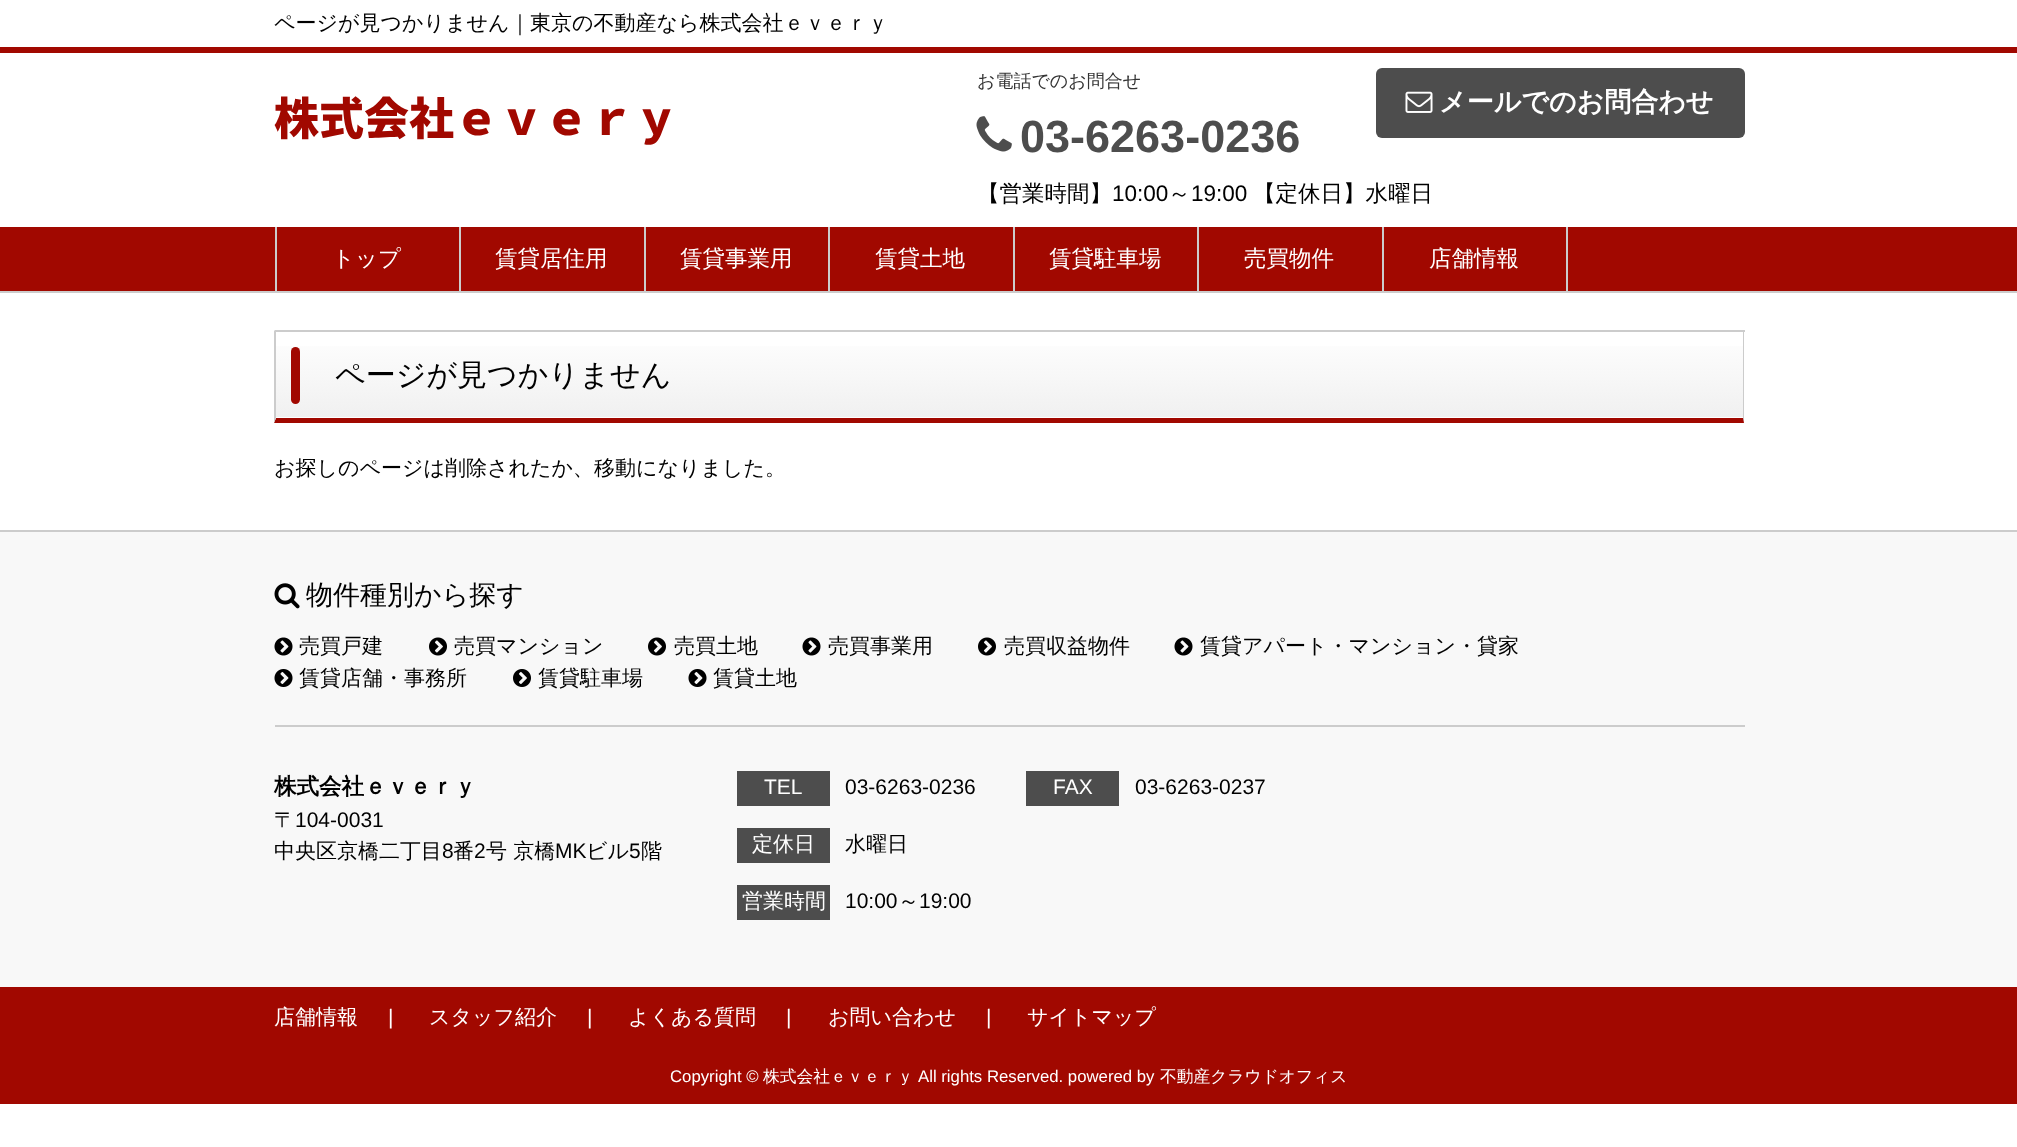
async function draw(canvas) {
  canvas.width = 2017
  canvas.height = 1147
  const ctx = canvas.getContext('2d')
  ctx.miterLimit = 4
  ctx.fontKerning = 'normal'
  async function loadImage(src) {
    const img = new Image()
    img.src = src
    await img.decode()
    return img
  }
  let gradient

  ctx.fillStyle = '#fff'
  ctx.fillRect(0, 0, 2017, 1147)
  ctx.fillStyle = '#a10800'
  ctx.fillRect(0, 47, 2017, 6)
  ctx.font = '500 21px WenQuanYi Zen Hei'
  ctx.fillStyle = '#000'
  ctx.fillText('ページが見つかりません｜東京の不動産なら株式会社ｅｖｅｒｙ', 274, 30)
  ctx.font = '900 45px Noto Sans JP'
  ctx.fillStyle = '#a10800'
  ctx.fillText('株式会社ｅｖｅｒｙ', 274, 135)
  ctx.font = '500 18px WenQuanYi Zen Hei'
  ctx.fillStyle = '#333'
  ctx.fillText('お電話でのお問合せ', 977, 87)
  ctx.drawImage(await loadImage('image0.png'), 976, 116, 36, 36)
  ctx.font = 'bold 45px Liberation Sans'
  ctx.fillStyle = '#4d4d4d'
  ctx.fillText('03-6263-0236', 1020, 152)
  ctx.beginPath()
  ctx.roundRect(1376, 68, 369, 70, 6)
  ctx.fill()
  ctx.drawImage(await loadImage('image1.png'), 1405, 91, 28, 22)
  ctx.font = 'bold 27px WenQuanYi Zen Hei'
  ctx.fillStyle = '#fff'
  ctx.fillText('メールでのお問合わせ', 1439, 111)
  ctx.font = '500 22.5px WenQuanYi Zen Hei'
  ctx.fillStyle = '#000'
  ctx.fillText('【営業時間】', 977, 201)
  ctx.font = '22.5px Liberation Sans'
  ctx.fillText('10:00', 1112, 201)
  ctx.font = '500 22.5px WenQuanYi Zen Hei'
  ctx.fillText('～', 1168, 201)
  ctx.font = '22.5px Liberation Sans'
  ctx.fillText('19:00', 1191, 201)
  ctx.font = '500 22.5px WenQuanYi Zen Hei'
  ctx.fillText('【定休日】水曜日', 1253, 201)
  ctx.fillStyle = '#a10800'
  ctx.fillRect(0, 227, 2017, 64)
  ctx.fillStyle = '#ccc'
  ctx.fillRect(0, 291, 2017, 2)
  ctx.fillRect(459, 227, 2, 64)
  ctx.fillRect(275, 227, 2, 64)
  ctx.fillStyle = '#fff'
  ctx.fillText('トップ', 332, 266)
  ctx.fillStyle = '#ccc'
  ctx.fillRect(644, 227, 2, 64)
  ctx.fillStyle = '#fff'
  ctx.fillText('賃貸居住用', 495, 266)
  ctx.fillStyle = '#ccc'
  ctx.fillRect(828, 227, 2, 64)
  ctx.fillStyle = '#fff'
  ctx.fillText('賃貸事業用', 680, 266)
  ctx.fillStyle = '#ccc'
  ctx.fillRect(1013, 227, 2, 64)
  ctx.fillStyle = '#fff'
  ctx.fillText('賃貸土地', 875, 266)
  ctx.fillStyle = '#ccc'
  ctx.fillRect(1197, 227, 2, 64)
  ctx.fillStyle = '#fff'
  ctx.fillText('賃貸駐車場', 1049, 266)
  ctx.fillStyle = '#ccc'
  ctx.fillRect(1382, 227, 2, 64)
  ctx.fillStyle = '#fff'
  ctx.fillText('売買物件', 1244, 266)
  ctx.fillStyle = '#ccc'
  ctx.fillRect(1566, 227, 2, 64)
  ctx.fillStyle = '#fff'
  ctx.fillText('店舗情報', 1429, 266)
  gradient = ctx.createLinearGradient(1010, 331, 1010, 419)
  gradient.addColorStop(0, '#fff')
  gradient.addColorStop(1, '#f0f0f0')
  ctx.fillStyle = gradient
  ctx.fillRect(276, 346, 1467, 71)
  ctx.fillStyle = '#ccc'
  ctx.fillRect(275, 330, 1470, 2)
  ctx.beginPath()
  ctx.moveTo(1744, 330)
  ctx.lineTo(1744, 423)
  ctx.lineTo(1743, 418)
  ctx.lineTo(1743, 332)
  ctx.closePath()
  ctx.fill()
  ctx.fillStyle = '#a10800'
  ctx.beginPath()
  ctx.moveTo(1744, 423)
  ctx.lineTo(274, 423)
  ctx.lineTo(276, 418)
  ctx.lineTo(1743, 418)
  ctx.closePath()
  ctx.fill()
  ctx.fillStyle = '#ccc'
  ctx.beginPath()
  ctx.moveTo(274, 423)
  ctx.lineTo(274, 330)
  ctx.lineTo(276, 332)
  ctx.lineTo(276, 418)
  ctx.closePath()
  ctx.fill()
  ctx.fillStyle = '#a10800'
  ctx.beginPath()
  ctx.roundRect(291, 347, 9, 57, 4.5)
  ctx.fill()
  ctx.font = '500 30px WenQuanYi Zen Hei'
  ctx.fillStyle = '#000'
  ctx.fillText('ページが見つかりません', 335, 385)
  ctx.font = '500 21px WenQuanYi Zen Hei'
  ctx.fillText('お探しのページは削除されたか、移動になりました。', 274, 475)
  ctx.fillStyle = '#f8f8f8'
  ctx.fillRect(0, 532, 2017, 455)
  ctx.fillStyle = '#ccc'
  ctx.fillRect(0, 530, 2017, 2)
  ctx.fillRect(275, 725, 1470, 2)
  ctx.drawImage(await loadImage('image2.png'), 274, 583, 26, 26)
  ctx.font = '500 27px WenQuanYi Zen Hei'
  ctx.fillStyle = '#000'
  ctx.fillText('物件種別から探す', 306, 604)
  ctx.drawImage(await loadImage('image3.png'), 274, 637, 19, 19)
  ctx.font = '500 21px WenQuanYi Zen Hei'
  ctx.fillText('売買戸建', 299, 653)
  ctx.drawImage(await loadImage('image4.png'), 429, 637, 18, 19)
  ctx.fillText('売買マンション', 454, 653)
  ctx.drawImage(await loadImage('image4.png'), 648, 637, 18, 19)
  ctx.fillText('売買土地', 674, 653)
  ctx.drawImage(await loadImage('image3.png'), 802, 637, 19, 19)
  ctx.fillText('売買事業用', 828, 653)
  ctx.drawImage(await loadImage('image4.png'), 978, 637, 18, 19)
  ctx.fillText('売買収益物件', 1004, 653)
  ctx.drawImage(await loadImage('image3.png'), 1174, 637, 19, 19)
  ctx.fillText('賃貸アパート・マンション・貸家', 1200, 653)
  ctx.drawImage(await loadImage('image5.png'), 274, 669, 19, 18)
  ctx.fillText('賃貸店舗・事務所', 299, 685)
  ctx.drawImage(await loadImage('image6.png'), 513, 669, 18, 18)
  ctx.fillText('賃貸駐車場', 538, 685)
  ctx.drawImage(await loadImage('image5.png'), 688, 669, 19, 18)
  ctx.fillText('賃貸土地', 713, 685)
  ctx.font = 'bold 22.5px WenQuanYi Zen Hei'
  ctx.fillText('株式会社ｅｖｅｒｙ', 274, 794)
  ctx.font = '500 21px WenQuanYi Zen Hei'
  ctx.fillText('〒', 274, 827)
  ctx.font = '21px Liberation Sans'
  ctx.fillText('104-0031', 295, 827)
  ctx.font = '500 21px WenQuanYi Zen Hei'
  ctx.fillText('中央区京橋二丁目', 274, 858)
  ctx.font = '21px Liberation Sans'
  ctx.fillText('8', 442, 858)
  ctx.font = '500 21px WenQuanYi Zen Hei'
  ctx.fillText('番', 453, 858)
  ctx.font = '21px Liberation Sans'
  ctx.fillText('2', 474, 858)
  ctx.font = '500 21px WenQuanYi Zen Hei'
  ctx.fillText('号 京橋', 486, 858)
  ctx.font = '21px Liberation Sans'
  ctx.fillText('MK', 555, 858)
  ctx.font = '500 21px WenQuanYi Zen Hei'
  ctx.fillText('ビル', 586, 858)
  ctx.font = '21px Liberation Sans'
  ctx.fillText('5', 629, 858)
  ctx.font = '500 21px WenQuanYi Zen Hei'
  ctx.fillText('階', 641, 858)
  ctx.fillStyle = '#4d4d4d'
  ctx.fillRect(737, 771, 93, 35)
  ctx.font = '21px Liberation Sans'
  ctx.fillStyle = '#fff'
  ctx.fillText('TEL', 764, 794)
  ctx.fillStyle = '#000'
  ctx.fillText('03-6263-0236', 845, 794)
  ctx.fillStyle = '#4d4d4d'
  ctx.fillRect(1026, 771, 93, 35)
  ctx.fillStyle = '#fff'
  ctx.fillText('FAX', 1053, 794)
  ctx.fillStyle = '#000'
  ctx.fillText('03-6263-0237', 1135, 794)
  ctx.fillStyle = '#4d4d4d'
  ctx.fillRect(737, 828, 93, 35)
  ctx.font = '500 21px WenQuanYi Zen Hei'
  ctx.fillStyle = '#fff'
  ctx.fillText('定休日', 752, 851)
  ctx.fillStyle = '#000'
  ctx.fillText('水曜日', 845, 851)
  ctx.fillStyle = '#4d4d4d'
  ctx.fillRect(737, 885, 93, 35)
  ctx.fillStyle = '#fff'
  ctx.fillText('営業時間', 742, 908)
  ctx.font = '21px Liberation Sans'
  ctx.fillStyle = '#000'
  ctx.fillText('10:00', 845, 908)
  ctx.font = '500 21px WenQuanYi Zen Hei'
  ctx.fillText('～', 898, 908)
  ctx.font = '21px Liberation Sans'
  ctx.fillText('19:00', 919, 908)
  ctx.fillStyle = '#a10800'
  ctx.fillRect(0, 987, 2017, 117)
  ctx.font = '500 21px WenQuanYi Zen Hei'
  ctx.fillStyle = '#fff'
  ctx.fillText('店舗情報', 274, 1024)
  ctx.font = '21px Liberation Sans'
  ctx.fillText('|', 388, 1024)
  ctx.font = '500 21px WenQuanYi Zen Hei'
  ctx.fillText('スタッフ紹介', 429, 1024)
  ctx.font = '21px Liberation Sans'
  ctx.fillText('|', 587, 1024)
  ctx.font = '500 21px WenQuanYi Zen Hei'
  ctx.fillText('よくある質問', 628, 1024)
  ctx.font = '21px Liberation Sans'
  ctx.fillText('|', 786, 1024)
  ctx.font = '500 21px WenQuanYi Zen Hei'
  ctx.fillText('お問い合わせ', 828, 1024)
  ctx.font = '21px Liberation Sans'
  ctx.fillText('|', 986, 1024)
  ctx.font = '500 21px WenQuanYi Zen Hei'
  ctx.fillText('サイトマップ', 1027, 1024)
  ctx.font = '16.75px Liberation Sans'
  ctx.fillText('Copyright ©', 670, 1082)
  ctx.font = '500 16.75px WenQuanYi Zen Hei'
  ctx.fillText('株式会社ｅｖｅｒｙ', 763, 1082)
  ctx.font = '16.75px Liberation Sans'
  ctx.fillText('All rights Reserved. powered by', 918, 1082)
  ctx.font = '500 16.75px WenQuanYi Zen Hei'
  ctx.fillText('不動産クラウドオフィス', 1160, 1082)
}

draw(document.querySelector('canvas'))
